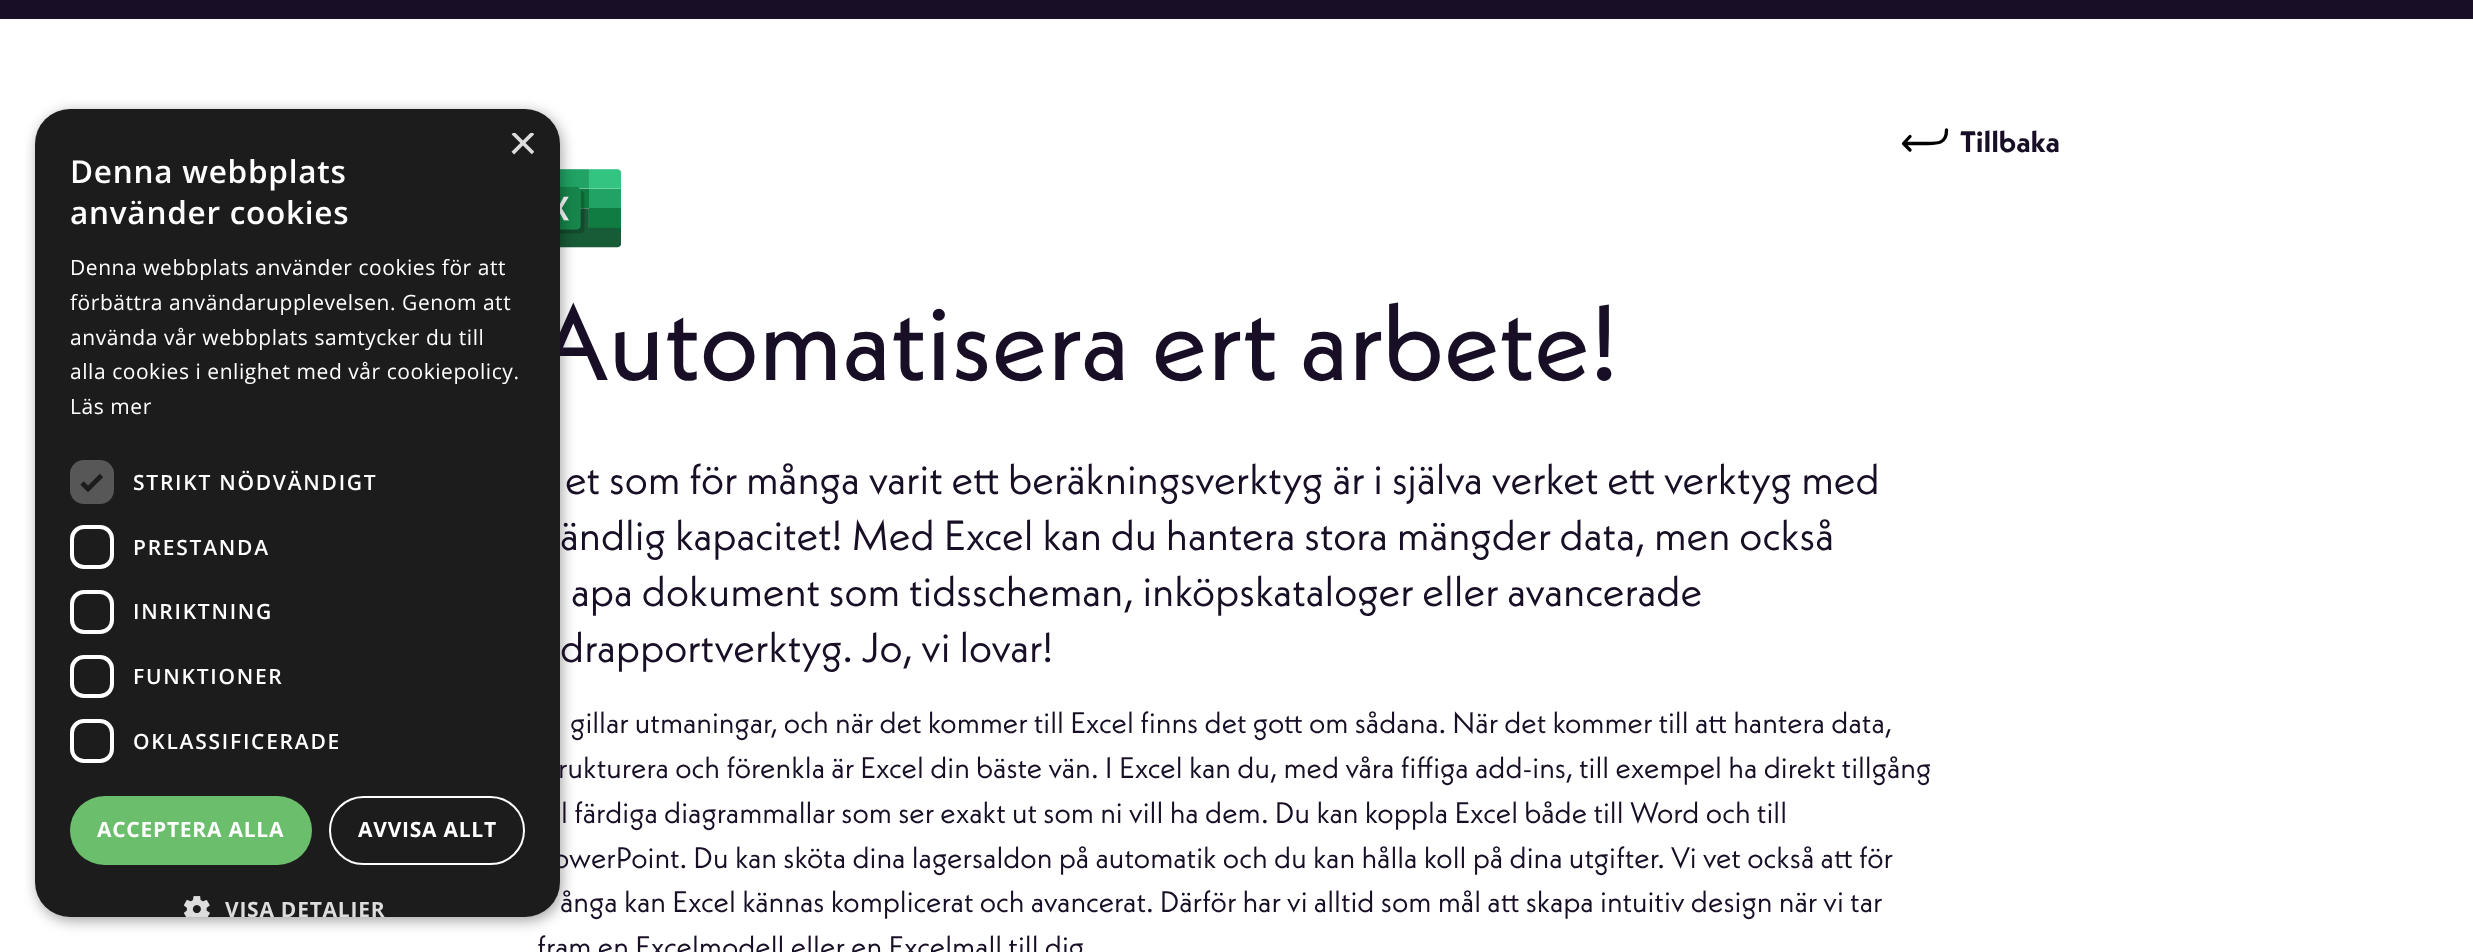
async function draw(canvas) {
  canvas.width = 2473
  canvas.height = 952
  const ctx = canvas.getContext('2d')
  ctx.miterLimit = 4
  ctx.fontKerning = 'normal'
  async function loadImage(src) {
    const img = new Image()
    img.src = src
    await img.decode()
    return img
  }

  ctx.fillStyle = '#fff'
  ctx.fillRect(0, 0, 2473, 952)
  ctx.fillStyle = '#180f26'
  ctx.fillRect(0, 0, 2473, 19)
  ctx.drawImage(await loadImage('image1.png'), 560, 169, 61, 79)
  ctx.fillStyle = '#00000059'
  ctx.filter = 'blur(7px)'
  ctx.beginPath()
  ctx.roundRect(37, 112, 525, 809, 35)
  ctx.fill()
  ctx.filter = 'none'
  ctx.font = '106.75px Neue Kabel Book'
  ctx.fillStyle = '#180f26'
  ctx.fillText('Automatisera ert arbete!', 537, 380)
  ctx.font = '29.75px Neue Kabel'
  ctx.fillText('owerPoint. Du kan sköta dina lagersaldon på automatik och du kan hålla koll på dina utgifter. Vi vet också att för', 553, 868)
  ctx.fillStyle = '#1c1c1c'
  ctx.beginPath()
  ctx.roundRect(35, 109, 525, 808, 35)
  ctx.fill()
  ctx.save()
  ctx.beginPath()
  ctx.rect(508, 133, 26, 26)
  ctx.clip()
  ctx.font = '51px Liberation Sans'
  ctx.fillStyle = '#ddd'
  ctx.fillText('×', 508, 160)
  ctx.restore()
  ctx.letterSpacing = '0.75px'
  ctx.font = '600 31.5px Open Sans'
  ctx.fillStyle = '#fff'
  ctx.fillText('Denna webbplats', 70, 183)
  ctx.fillText('använder cookies', 70, 224)
  ctx.letterSpacing = '0.55px'
  ctx.font = '21px Open Sans'
  ctx.fillText('Denna webbplats använder cookies för att', 70, 275)
  ctx.fillText('förbättra användarupplevelsen. Genom att', 70, 310)
  ctx.fillText('använda vår webbplats samtycker du till', 70, 345)
  ctx.fillText('alla cookies i enlighet med vår cookiepolicy.', 70, 379)
  ctx.fillText('Läs mer', 70, 414)
  ctx.fillStyle = '#575757'
  ctx.beginPath()
  ctx.roundRect(70, 460, 44, 44, 14)
  ctx.fill()
  ctx.beginPath()
  ctx.moveTo(82, 483)
  ctx.lineTo(88, 489)
  ctx.lineTo(101.5, 475.5)
  ctx.strokeStyle = '#1c1c1c'
  ctx.lineWidth = 4.6
  ctx.stroke()
  ctx.letterSpacing = '1.75px'
  ctx.font = '600 21px Open Sans'
  ctx.fillStyle = '#fff'
  ctx.fillText('STRIKT NÖDVÄNDIGT', 133, 490)
  ctx.beginPath()
  ctx.roundRect(72, 527, 40, 40, 12)
  ctx.strokeStyle = '#fff'
  ctx.lineWidth = 4
  ctx.stroke()
  ctx.fillText('PRESTANDA', 133, 555)
  ctx.beginPath()
  ctx.roundRect(72, 592, 40, 40, 12)
  ctx.stroke()
  ctx.fillText('INRIKTNING', 133, 619)
  ctx.beginPath()
  ctx.roundRect(72, 657, 40, 39, 12)
  ctx.stroke()
  ctx.fillText('FUNKTIONER', 133, 684)
  ctx.beginPath()
  ctx.roundRect(72, 721, 40, 40, 12)
  ctx.stroke()
  ctx.fillText('OKLASSIFICERADE', 133, 749)
  ctx.fillStyle = '#6bbe6b'
  ctx.beginPath()
  ctx.roundRect(70, 796, 242, 69, 34.5)
  ctx.fill()
  ctx.letterSpacing = '0.75px'
  ctx.font = 'bold 21px Open Sans'
  ctx.fillStyle = '#fff'
  ctx.fillText('ACCEPTERA ALLA', 97, 837)
  ctx.beginPath()
  ctx.roundRect(330, 797, 194, 67, 33.5)
  ctx.lineWidth = 2
  ctx.stroke()
  ctx.fillText('AVVISA ALLT', 358, 837)
  ctx.drawImage(await loadImage('image0.png'), 184, 896, 26, 21)
  ctx.save()
  ctx.beginPath()
  ctx.roundRect(35, 109, 525, 808, 35)
  ctx.clip()
  ctx.fillStyle = '#ddd'
  ctx.fillText('VISA DETALJER', 225, 917)
  ctx.restore()
  ctx.beginPath()
  ctx.moveTo(1910, 150)
  ctx.lineTo(1903.5, 143.5)
  ctx.lineTo(1910, 136.5)
  ctx.moveTo(1905.5, 143.5)
  ctx.lineTo(1925.5, 143.5)
  ctx.bezierCurveTo(1936.5, 143.5, 1946.5, 144.5, 1946.5, 130)
  ctx.strokeStyle = '#000'
  ctx.lineWidth = 3.3
  ctx.lineCap = 'round'
  ctx.lineJoin = 'round'
  ctx.stroke()
  ctx.letterSpacing = '0px'
  ctx.font = 'bold 29.75px Neue Kabel'
  ctx.fillStyle = '#180f26'
  ctx.fillText('Tillbaka', 1960, 152)
  ctx.font = '42px Neue Kabel'
  ctx.fillText('et som för många varit ett beräkningsverktyg är i själva verket ett verktyg med', 565, 494)
  ctx.fillText('ändlig kapacitet! Med Excel kan du hantera stora mängder data, men också', 560, 550)
  ctx.fillText('apa dokument som tidsscheman, inköpskataloger eller avancerade', 571, 606)
  ctx.fillText('drapportverktyg. Jo, vi lovar!', 560, 662)
  ctx.font = '29.75px Neue Kabel'
  ctx.fillText('gillar utmaningar, och när det kommer till Excel finns det gott om sådana. När det kommer till att hantera data,', 570, 733)
  ctx.fillText('rukturera och förenkla är Excel din bäste vän. I Excel kan du, med våra fiffiga add-ins, till exempel ha direkt tillgång', 558, 778)
  ctx.fillText('l färdiga diagrammallar som ser exakt ut som ni vill ha dem. Du kan koppla Excel både till Word och till', 561, 823)
  ctx.fillText('ånga kan Excel kännas komplicerat och avancerat. Därför har vi alltid som mål att skapa intuitiv design när vi tar', 560, 912)
  ctx.fillText('fram en Excelmodell eller en Excelmall till dig', 537, 957)
}

draw(document.querySelector('canvas'))
